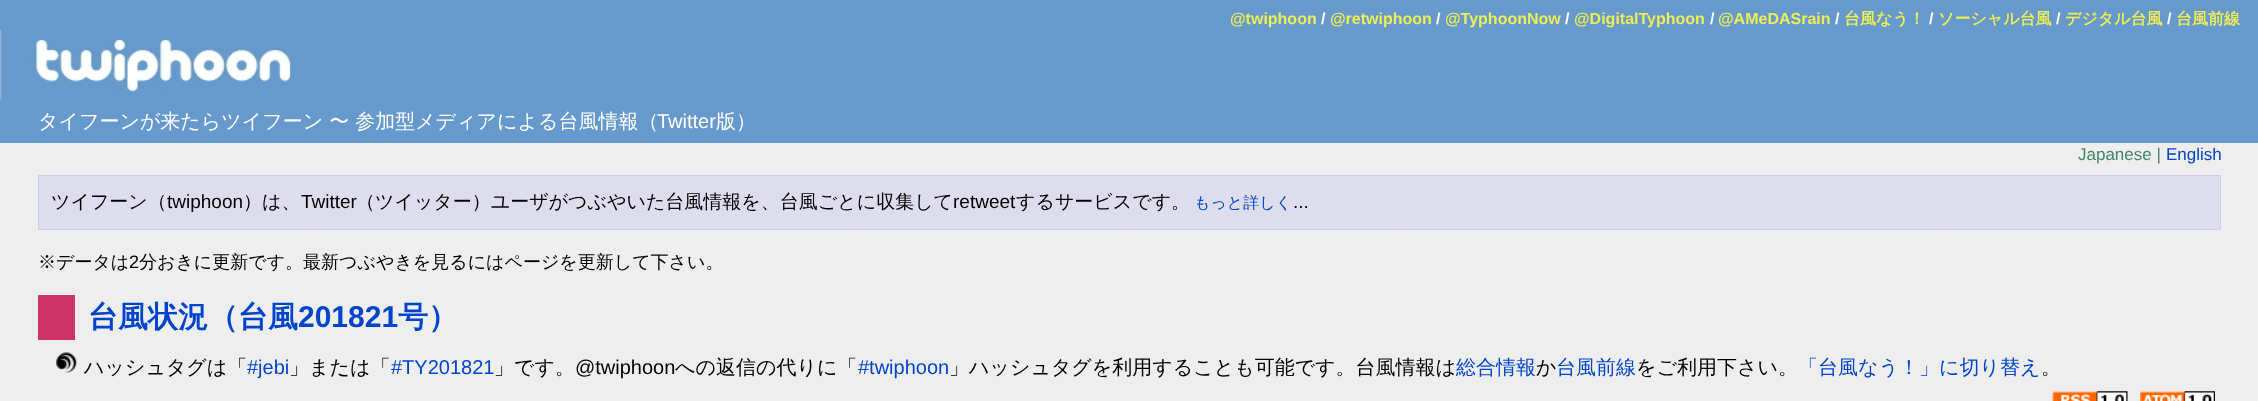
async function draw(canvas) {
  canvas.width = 2258
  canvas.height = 401
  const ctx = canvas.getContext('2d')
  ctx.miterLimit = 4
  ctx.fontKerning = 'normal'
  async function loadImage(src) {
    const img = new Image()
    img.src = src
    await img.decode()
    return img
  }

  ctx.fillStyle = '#eee'
  ctx.fillRect(0, 0, 2258, 401)
  ctx.fillStyle = '#69c'
  ctx.fillRect(0, 0, 2258, 30)
  ctx.font = 'bold 16px Liberation Sans'
  ctx.fillStyle = '#ee5'
  ctx.fillText('@twiphoon', 1230, 24)
  ctx.fillStyle = '#fff'
  ctx.fillText('/', 1321, 24)
  ctx.fillStyle = '#ee5'
  ctx.fillText('@retwiphoon', 1330, 24)
  ctx.fillStyle = '#fff'
  ctx.fillText('/', 1436, 24)
  ctx.fillStyle = '#ee5'
  ctx.fillText('@TyphoonNow', 1445, 24)
  ctx.fillStyle = '#fff'
  ctx.fillText('/', 1565, 24)
  ctx.fillStyle = '#ee5'
  ctx.fillText('@DigitalTyphoon', 1574, 24)
  ctx.fillStyle = '#fff'
  ctx.fillText('/', 1710, 24)
  ctx.fillStyle = '#ee5'
  ctx.fillText('@AMeDASrain', 1718, 24)
  ctx.fillStyle = '#fff'
  ctx.fillText('/', 1835, 24)
  ctx.font = 'bold 16px WenQuanYi Zen Hei'
  ctx.fillStyle = '#ee5'
  ctx.fillText('台風なう！', 1844, 24)
  ctx.font = 'bold 16px Liberation Sans'
  ctx.fillStyle = '#fff'
  ctx.fillText('/', 1929, 24)
  ctx.font = 'bold 16px WenQuanYi Zen Hei'
  ctx.fillStyle = '#ee5'
  ctx.fillText('ソーシャル台風', 1938, 24)
  ctx.font = 'bold 16px Liberation Sans'
  ctx.fillStyle = '#fff'
  ctx.fillText('/', 2056, 24)
  ctx.font = 'bold 16px WenQuanYi Zen Hei'
  ctx.fillStyle = '#ee5'
  ctx.fillText('デジタル台風', 2065, 24)
  ctx.font = 'bold 16px Liberation Sans'
  ctx.fillStyle = '#fff'
  ctx.fillText('/', 2167, 24)
  ctx.font = 'bold 16px WenQuanYi Zen Hei'
  ctx.fillStyle = '#ee5'
  ctx.fillText('台風前線', 2176, 24)
  ctx.fillStyle = '#69c'
  ctx.fillRect(292, 30, 1966, 70)
  ctx.drawImage(await loadImage('image0.png'), 0, 30, 292, 70)
  ctx.fillRect(0, 100, 2258, 43)
  ctx.font = '500 20px WenQuanYi Zen Hei'
  ctx.fillStyle = '#fff'
  ctx.fillText('タイフーンが来たらツイフーン 〜 参加型メディアによる台風情報（', 38, 128)
  ctx.font = '20px Liberation Sans'
  ctx.fillText('Twitter', 657, 128)
  ctx.font = '500 20px WenQuanYi Zen Hei'
  ctx.fillText('版）', 716, 128)
  ctx.font = '17px Liberation Sans'
  ctx.fillStyle = '#486'
  ctx.fillText('Japanese |', 2078, 160)
  ctx.fillStyle = '#04c'
  ctx.fillText('English', 2166, 160)
  ctx.fillStyle = '#dde'
  ctx.beginPath()
  ctx.rect(38.5, 175.5, 2182, 54)
  ctx.fill()
  ctx.strokeStyle = '#cce'
  ctx.stroke()
  ctx.font = '500 19px WenQuanYi Zen Hei'
  ctx.fillStyle = '#000'
  ctx.fillText('ツイフーン（', 51, 208)
  ctx.font = '19px Liberation Sans'
  ctx.fillText('twiphoon', 167, 208)
  ctx.font = '500 19px WenQuanYi Zen Hei'
  ctx.fillText('）は、', 243, 208)
  ctx.font = '19px Liberation Sans'
  ctx.fillText('Twitter', 301, 208)
  ctx.font = '500 19px WenQuanYi Zen Hei'
  ctx.fillText('（ツイッター）ユーザがつぶやいた台風情報を、台風ごとに収集して', 356, 208)
  ctx.font = '19px Liberation Sans'
  ctx.fillText('retweet', 953, 208)
  ctx.font = '500 19px WenQuanYi Zen Hei'
  ctx.fillText('するサービスです。', 1016, 208)
  ctx.font = '500 16px WenQuanYi Zen Hei'
  ctx.fillStyle = '#04c'
  ctx.fillText('もっと詳しく', 1194, 208)
  ctx.font = '19px Liberation Sans'
  ctx.fillStyle = '#000'
  ctx.fillText('...', 1293, 208)
  ctx.font = '500 18px WenQuanYi Zen Hei'
  ctx.fillText('※データは', 38, 268)
  ctx.font = '18px Liberation Sans'
  ctx.fillText('2', 129, 268)
  ctx.font = '500 18px WenQuanYi Zen Hei'
  ctx.fillText('分おきに更新です。最新つぶやきを見るにはページを更新して下さい。', 139, 268)
  ctx.fillStyle = '#c36'
  ctx.fillRect(38, 295, 37, 45)
  ctx.font = 'bold 30px WenQuanYi Zen Hei'
  ctx.fillStyle = '#04c'
  ctx.fillText('台風状況（台風', 88, 327)
  ctx.font = 'bold 30px Liberation Sans'
  ctx.fillText('201821', 298, 327)
  ctx.font = 'bold 30px WenQuanYi Zen Hei'
  ctx.fillText('号）', 398, 327)
  ctx.drawImage(await loadImage('image1.png'), 56, 352, 21, 21)
  ctx.font = '500 20px WenQuanYi Zen Hei'
  ctx.fillStyle = '#000'
  ctx.fillText('ハッシュタグは「', 84, 374)
  ctx.font = '20px Liberation Sans'
  ctx.fillStyle = '#04c'
  ctx.fillText('#jebi', 247, 374)
  ctx.font = '500 20px WenQuanYi Zen Hei'
  ctx.fillStyle = '#000'
  ctx.fillText('」または「', 289, 374)
  ctx.font = '20px Liberation Sans'
  ctx.fillStyle = '#04c'
  ctx.fillText('#TY201821', 391, 374)
  ctx.font = '500 20px WenQuanYi Zen Hei'
  ctx.fillStyle = '#000'
  ctx.fillText('」です。', 494, 374)
  ctx.font = '20px Liberation Sans'
  ctx.fillText('@twiphoon', 575, 374)
  ctx.font = '500 20px WenQuanYi Zen Hei'
  ctx.fillText('への返信の代りに「', 675, 374)
  ctx.font = '20px Liberation Sans'
  ctx.fillStyle = '#04c'
  ctx.fillText('#twiphoon', 858, 374)
  ctx.font = '500 20px WenQuanYi Zen Hei'
  ctx.fillStyle = '#000'
  ctx.fillText('」ハッシュタグを利用することも可能です。台風情報は', 949, 374)
  ctx.fillStyle = '#04c'
  ctx.fillText('総合情報', 1456, 374)
  ctx.fillStyle = '#000'
  ctx.fillText('か', 1536, 374)
  ctx.fillStyle = '#04c'
  ctx.fillText('台風前線', 1556, 374)
  ctx.fillStyle = '#000'
  ctx.fillText('をご利用下さい。', 1636, 374)
  ctx.fillStyle = '#04c'
  ctx.fillText('「台風なう！」に切り替え', 1798, 374)
  ctx.fillStyle = '#000'
  ctx.fillText('。', 2041, 374)
  ctx.drawImage(await loadImage('image2.png'), 2052, 391, 76, 10)
  ctx.drawImage(await loadImage('image3.png'), 2140, 391, 75, 10)
}

draw(document.querySelector('canvas'))
